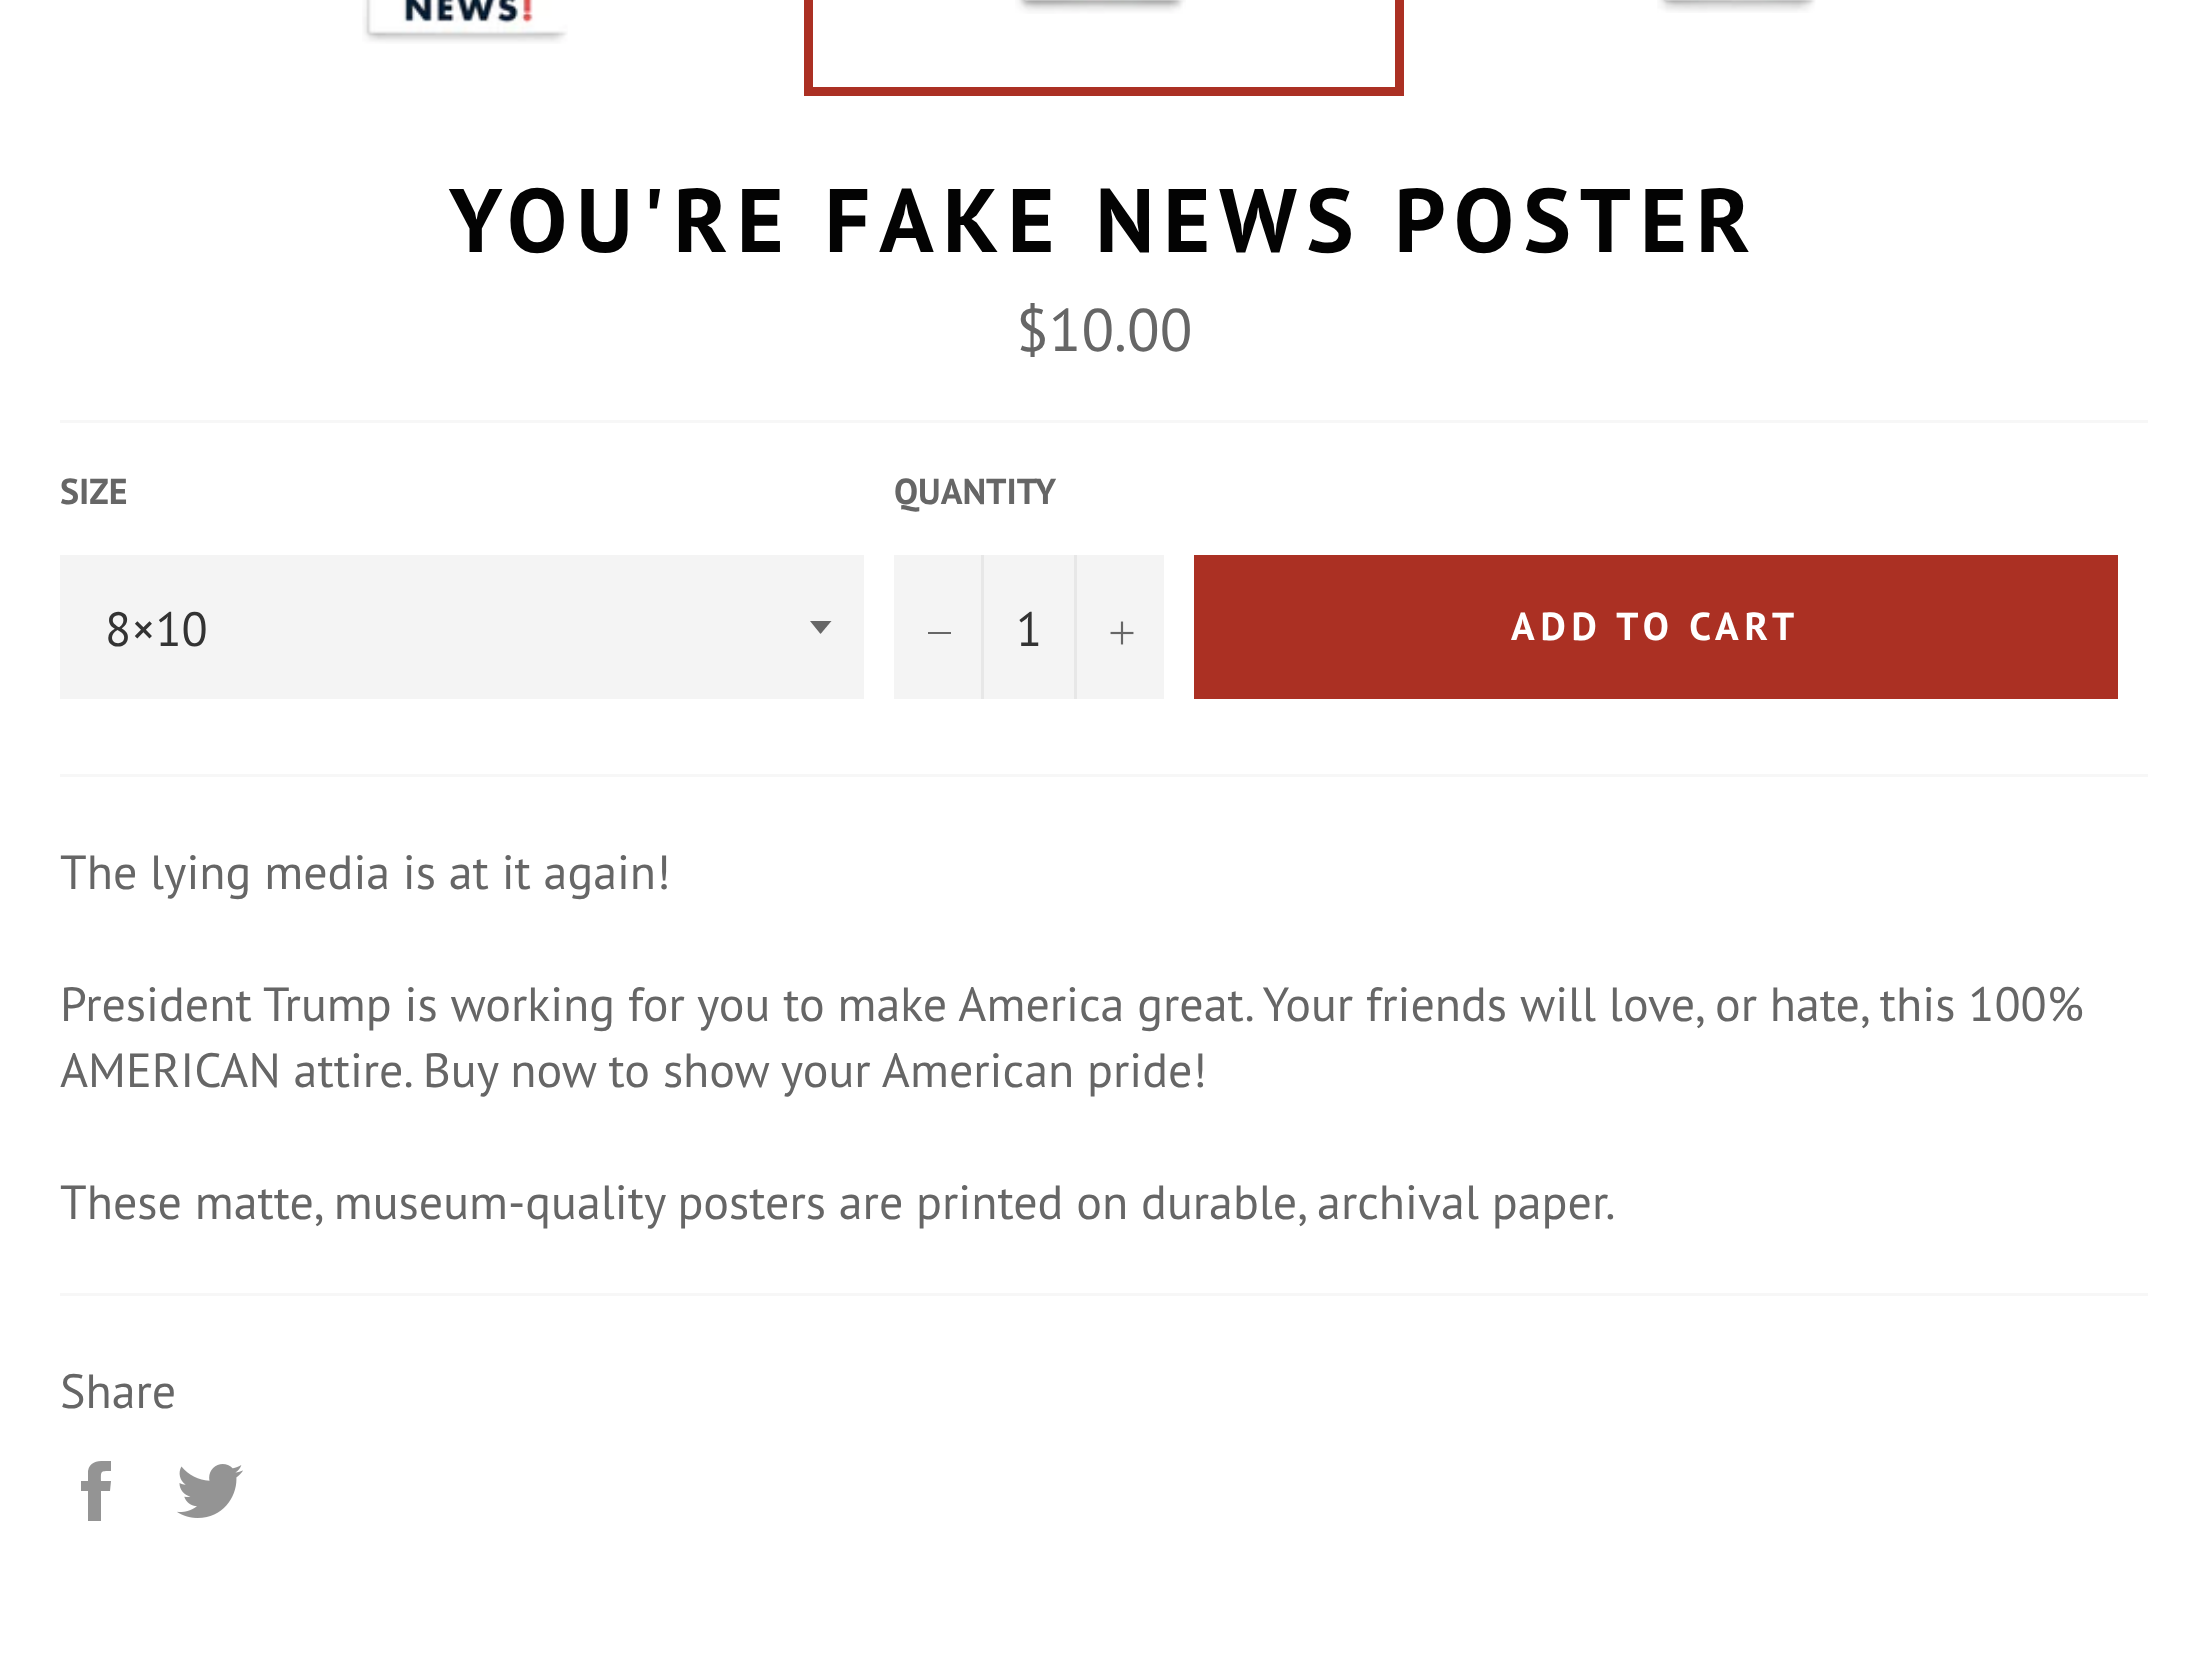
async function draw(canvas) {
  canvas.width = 2207
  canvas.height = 1668
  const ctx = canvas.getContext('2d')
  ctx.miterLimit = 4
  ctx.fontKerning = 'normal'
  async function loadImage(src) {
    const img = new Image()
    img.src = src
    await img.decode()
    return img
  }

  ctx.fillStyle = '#fff'
  ctx.fillRect(0, 0, 2207, 1668)
  ctx.drawImage(await loadImage('image0.png'), 362, 0, 206, 44)
  ctx.drawImage(await loadImage('image1.png'), 1015, 0, 171, 14)
  ctx.strokeStyle = '#ab3023'
  ctx.lineWidth = 9
  ctx.strokeRect(808.5, -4.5, 591, 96)
  ctx.drawImage(await loadImage('image2.png'), 1657, 0, 159, 13)
  ctx.letterSpacing = '9px'
  ctx.font = 'bold 90px PT Sans'
  ctx.fillStyle = '#030303'
  ctx.fillText('YOU\'RE FAKE NEWS POSTER', 449, 252)
  ctx.letterSpacing = '0px'
  ctx.font = '60px PT Sans'
  ctx.fillStyle = '#666'
  ctx.fillText('$10.00', 1016, 351)
  ctx.fillStyle = '#f7f7f7'
  ctx.fillRect(60, 420, 2088, 3)
  ctx.font = 'bold 36px PT Sans'
  ctx.fillStyle = '#666'
  ctx.fillText('SIZE', 60, 504)
  ctx.fillStyle = '#f4f4f4'
  ctx.fillRect(60, 555, 804, 144)
  ctx.fillStyle = '#666'
  ctx.beginPath()
  ctx.moveTo(810, 621)
  ctx.lineTo(820.5, 634)
  ctx.bezierCurveTo(821, 634, 830, 622.5, 831.5, 621)
  ctx.closePath()
  ctx.fill()
  ctx.font = '48px PT Sans'
  ctx.fillStyle = '#333'
  ctx.fillText('8×10', 105, 646)
  ctx.font = 'bold 36px PT Sans'
  ctx.fillStyle = '#666'
  ctx.fillText('QUANTITY', 894, 504)
  ctx.fillStyle = '#f4f4f4'
  ctx.fillRect(894, 555, 270, 144)
  ctx.fillStyle = '#e7e7e7'
  ctx.fillRect(981, 555, 3, 144)
  ctx.fillStyle = '#666'
  ctx.fillRect(928, 632, 23, 2)
  ctx.font = '48px PT Sans'
  ctx.fillStyle = '#333'
  ctx.fillText('1', 1016, 646)
  ctx.fillStyle = '#e7e7e7'
  ctx.fillRect(1074, 555, 3, 144)
  ctx.drawImage(await loadImage('image3.png'), 1110, 621, 24, 24)
  ctx.fillStyle = '#ab3023'
  ctx.fillRect(1194, 555, 924, 144)
  ctx.letterSpacing = '5.8px'
  ctx.font = 'bold 39px PT Sans'
  ctx.fillStyle = '#fff'
  ctx.fillText('ADD TO CART', 1511, 640)
  ctx.fillStyle = '#f7f7f7'
  ctx.fillRect(60, 774, 2088, 3)
  ctx.letterSpacing = '0px'
  ctx.font = '48px PT Sans'
  ctx.fillStyle = '#666'
  ctx.fillText('The lying media is at it again!', 60, 889)
  ctx.fillText('President Trump is working for you to make America great. Your friends will love, or hate, this 100%', 60, 1021)
  ctx.fillText('AMERICAN attire. Buy now to show your American pride!', 60, 1087)
  ctx.fillText('These matte, museum-quality posters are printed on durable, archival paper.', 60, 1219)
  ctx.fillStyle = '#f7f7f7'
  ctx.fillRect(60, 1293, 2088, 3)
  ctx.fillStyle = '#666'
  ctx.fillText('Share', 60, 1408)
  ctx.fillStyle = '#949494'
  ctx.beginPath()
  ctx.moveTo(101, 1481)
  ctx.bezierCurveTo(101, 1471, 100, 1471, 111, 1471)
  ctx.lineTo(111, 1461)
  ctx.bezierCurveTo(102, 1461, 90, 1459, 88, 1471)
  ctx.lineTo(88, 1481)
  ctx.lineTo(81, 1481)
  ctx.lineTo(81, 1491)
  ctx.lineTo(88, 1491)
  ctx.lineTo(88, 1521)
  ctx.lineTo(101, 1521)
  ctx.lineTo(101, 1491)
  ctx.lineTo(110, 1491)
  ctx.lineTo(111, 1481)
  ctx.closePath()
  ctx.fill()
  ctx.drawImage(await loadImage('image4.png'), 177, 1464, 66, 54)
}

draw(document.querySelector('canvas'))
